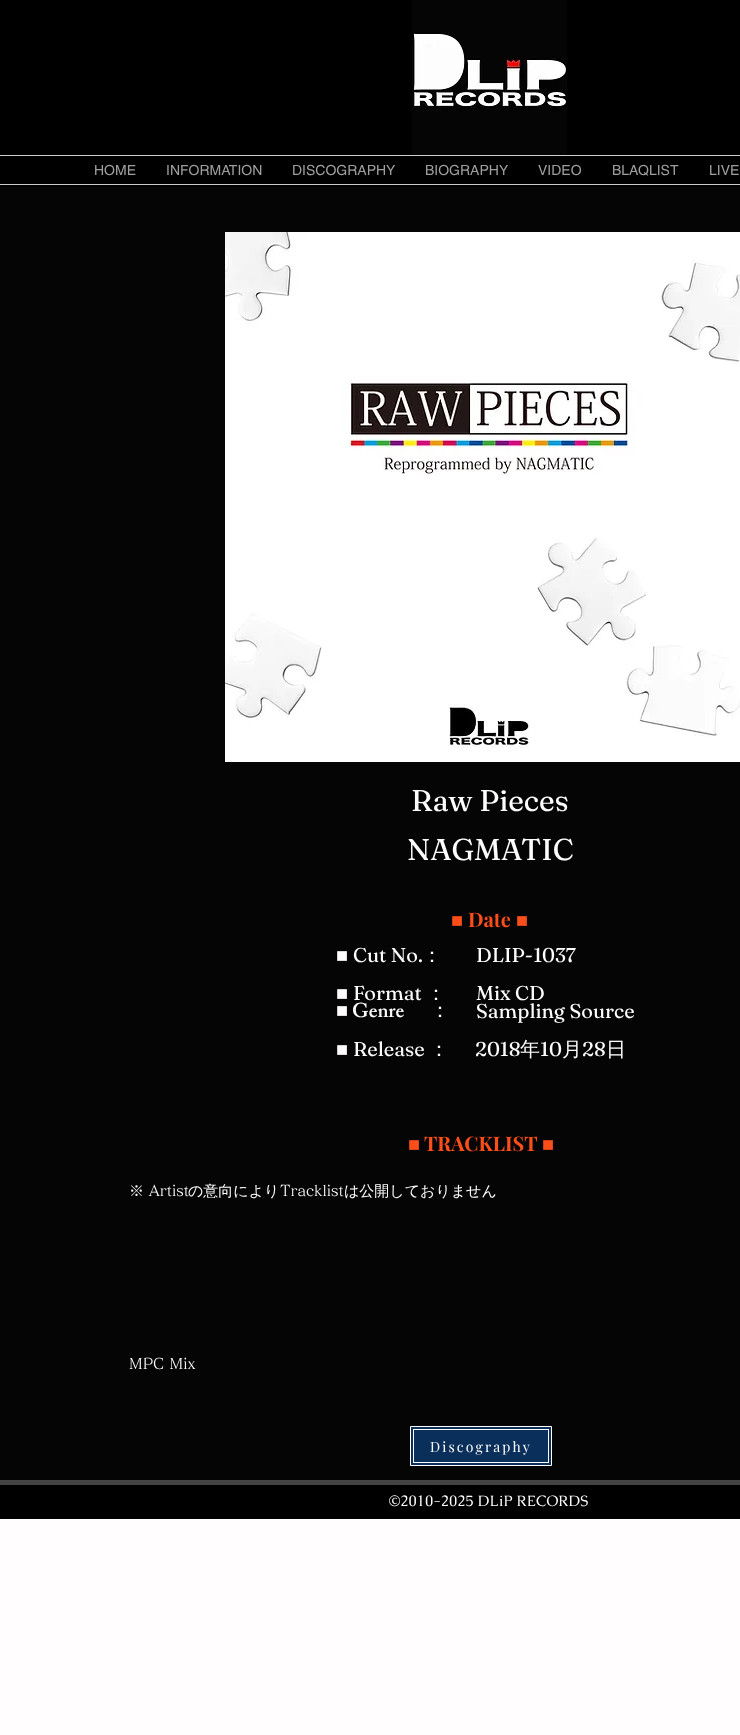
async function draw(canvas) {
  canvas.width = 740
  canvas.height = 1735
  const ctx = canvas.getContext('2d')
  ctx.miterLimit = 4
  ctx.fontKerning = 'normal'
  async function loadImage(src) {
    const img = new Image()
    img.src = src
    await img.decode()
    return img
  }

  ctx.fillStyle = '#fffdfd'
  ctx.fillRect(0, 0, 740, 1735)
  ctx.fillStyle = '#000'
  ctx.fillRect(0, 0, 740, 187)
  ctx.drawImage(await loadImage('image0.png'), 412, 0, 155, 155)
  ctx.fillStyle = '#ccc'
  ctx.fillRect(0, 155, 740, 1)
  ctx.fillRect(0, 184, 740, 1)
  ctx.font = '14px helvetica'
  ctx.fillStyle = '#9e9e9e'
  ctx.fillText('HOME', 94, 175)
  ctx.fillText('INFORMATION', 166, 175)
  ctx.fillText('DISCOGRAPHY', 292, 175)
  ctx.fillText('BIOGRAPHY', 425, 175)
  ctx.fillText('VIDEO', 538, 175)
  ctx.fillText('BLAQLIST', 612, 175)
  ctx.fillText('LIVE', 709, 175)
  ctx.fillStyle = '#050505'
  ctx.fillRect(0, 187, 740, 1293)
  ctx.drawImage(await loadImage('image1.png'), 225, 232, 515, 530)
  ctx.font = '30px Fraunces'
  ctx.fillStyle = '#fffdfd'
  ctx.fillText('Raw Pieces', 411, 811)
  ctx.fillText('NAGMATIC', 407, 860)
  ctx.font = '20px Liberation Serif'
  ctx.fillStyle = '#fc4e1a'
  ctx.fillText('■', 451, 927)
  ctx.font = 'bold 20px Playfair Display'
  ctx.fillText('Date', 468, 927)
  ctx.font = '20px Liberation Serif'
  ctx.fillText('■', 516, 927)
  ctx.fillStyle = '#fffdfd'
  ctx.fillText('■', 336, 962)
  ctx.font = '20px Fraunces'
  ctx.fillText('Cut No.', 353, 962)
  ctx.font = '500 20px WenQuanYi Zen Hei'
  ctx.fillText('：', 422, 962)
  ctx.font = '20px Fraunces'
  ctx.fillText('DLIP-1037', 476, 962)
  ctx.font = '20px Liberation Serif'
  ctx.fillText('■', 336, 1000)
  ctx.font = '20px Fraunces'
  ctx.fillText('Format', 353, 1000)
  ctx.font = '500 20px WenQuanYi Zen Hei'
  ctx.fillText('：', 426, 1000)
  ctx.font = '20px Fraunces'
  ctx.fillText('Mix CD', 476, 1000)
  ctx.font = '20px Liberation Serif'
  ctx.fillText('■', 336, 1056)
  ctx.font = '20px Fraunces'
  ctx.fillText('Release', 353, 1056)
  ctx.font = '500 20px WenQuanYi Zen Hei'
  ctx.fillText('：', 429, 1056)
  ctx.font = '20px Fraunces'
  ctx.fillText('2018', 475, 1056)
  ctx.font = '500 20px WenQuanYi Zen Hei'
  ctx.fillText('年', 520, 1056)
  ctx.font = '20px Fraunces'
  ctx.fillText('10', 540, 1056)
  ctx.font = '500 20px WenQuanYi Zen Hei'
  ctx.fillText('月', 562, 1056)
  ctx.font = '20px Fraunces'
  ctx.fillText('28', 582, 1056)
  ctx.font = '500 20px WenQuanYi Zen Hei'
  ctx.fillText('日', 606, 1056)
  ctx.font = '20px Liberation Serif'
  ctx.fillText('■', 336, 1017)
  ctx.font = '600 20px "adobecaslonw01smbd"'
  ctx.fillText('Genre', 352, 1017)
  ctx.font = '500 20px WenQuanYi Zen Hei'
  ctx.fillText('：', 430, 1017)
  ctx.font = '20px Fraunces'
  ctx.fillText('Sampling Source', 476, 1018)
  ctx.font = '20px Liberation Serif'
  ctx.fillStyle = '#fc4e1a'
  ctx.fillText('■', 408, 1151)
  ctx.font = 'bold 20px Playfair Display'
  ctx.fillText('TRACKLIST', 424, 1151)
  ctx.font = '20px Liberation Serif'
  ctx.fillText('■', 542, 1151)
  ctx.font = '500 15px WenQuanYi Zen Hei'
  ctx.fillStyle = '#fffdfd'
  ctx.fillText('※', 129, 1196)
  ctx.font = '500 15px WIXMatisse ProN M'
  ctx.fillText('Artist', 149, 1196)
  ctx.font = '500 15px WenQuanYi Zen Hei'
  ctx.fillText('の意向により', 188, 1196)
  ctx.font = '500 15px WIXMatisse ProN M'
  ctx.fillText('Tracklist', 280, 1196)
  ctx.font = '500 15px WenQuanYi Zen Hei'
  ctx.fillText('は公開しておりません', 344, 1196)
  ctx.font = '500 15px WIXMatisse ProN M'
  ctx.fillText('MPC Mix', 129, 1369)
  ctx.fillStyle = '#0b2f5b'
  ctx.beginPath()
  ctx.rect(410.5, 1426.5, 141, 39)
  ctx.fill()
  ctx.strokeStyle = '#fffdfd'
  ctx.stroke()
  ctx.strokeRect(413.5, 1429.5, 135, 33)
  ctx.letterSpacing = '2.1px'
  ctx.font = '14px Playfair Display'
  ctx.fillStyle = '#fffdfd'
  ctx.fillText('Discography', 430, 1452)
  ctx.fillStyle = '#000'
  ctx.fillRect(0, 1485, 740, 34)
  ctx.fillStyle = '#444343'
  ctx.fillRect(0, 1480, 740, 5)
  ctx.letterSpacing = '0.15px'
  ctx.font = '15px Caudex'
  ctx.fillStyle = '#fffdfd'
  ctx.fillText('©︎2010-2025 DLiP RECORDS', 389, 1506)
}

draw(document.querySelector('canvas'))
